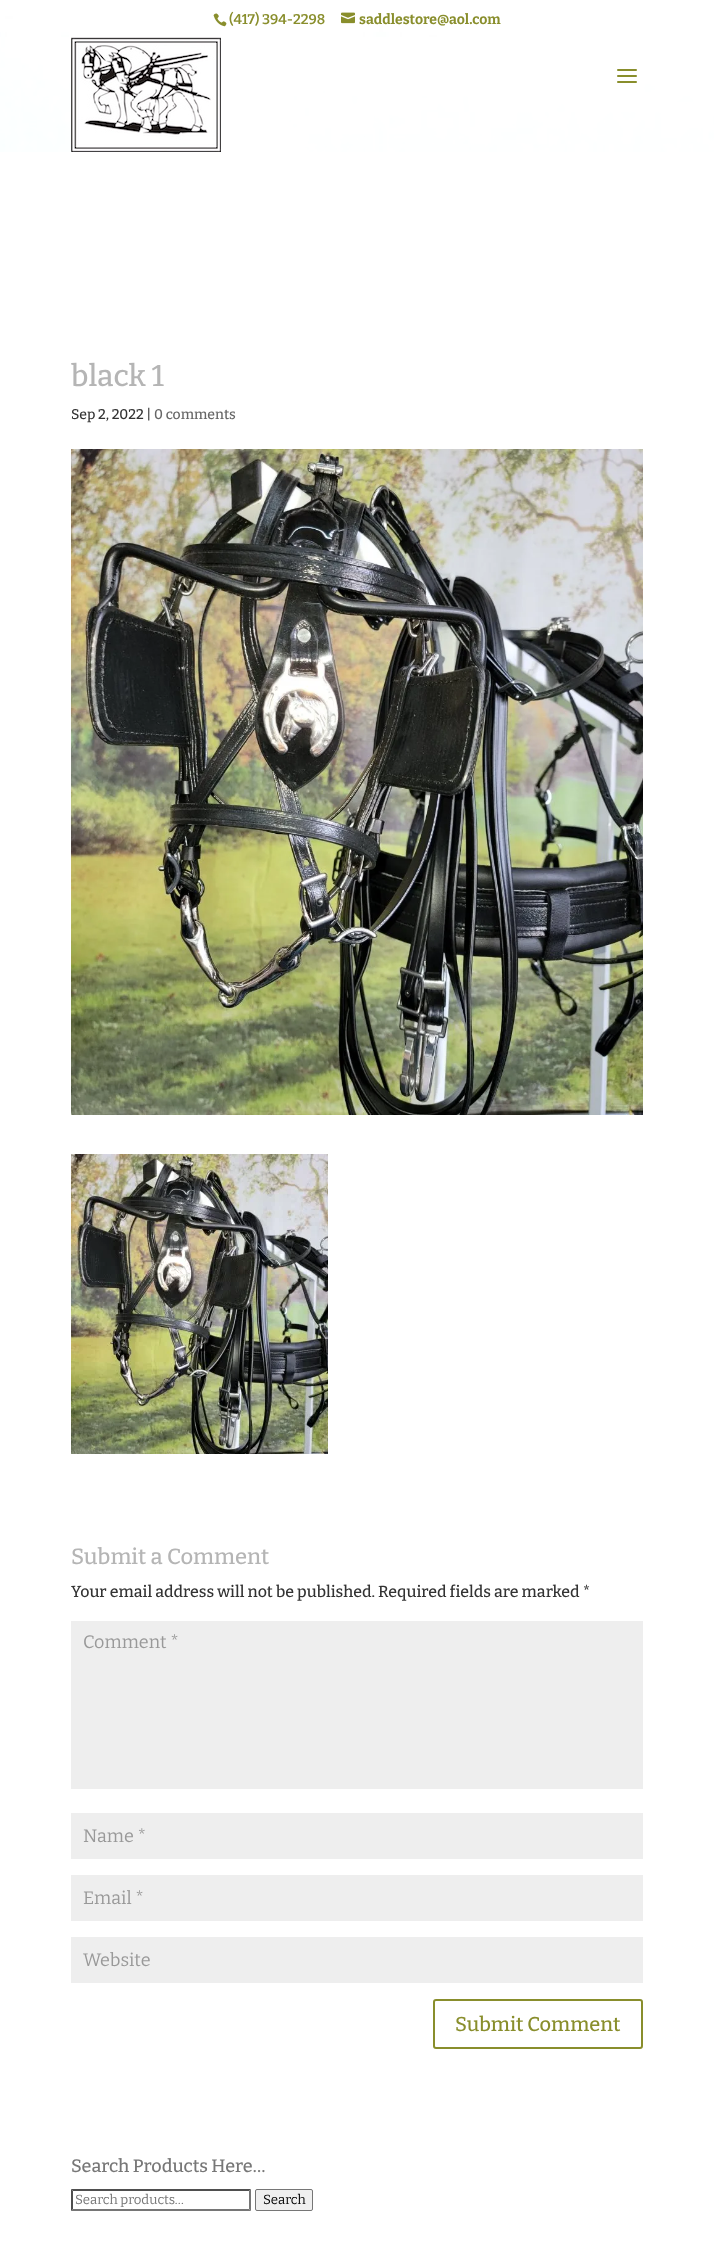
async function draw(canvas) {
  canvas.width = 714
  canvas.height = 2246
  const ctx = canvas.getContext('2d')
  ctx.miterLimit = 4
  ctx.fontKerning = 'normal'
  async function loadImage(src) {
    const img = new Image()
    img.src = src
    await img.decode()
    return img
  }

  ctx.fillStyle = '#fff'
  ctx.fillRect(0, 0, 714, 2246)
  ctx.drawImage(await loadImage('image0.png'), 0, 0, 714, 152)
  ctx.fillStyle = '#ffffffc4'
  ctx.fillRect(1, 32, 4, 5)
  ctx.drawImage(await loadImage('image1.png'), 213, 13, 14, 14)
  ctx.font = '600 14px Bitter'
  ctx.fillStyle = '#898e2c'
  ctx.fillText('(417) 394-2298', 229, 24)
  ctx.drawImage(await loadImage('image2.png'), 341, 12, 14, 12)
  ctx.font = 'bold 14px Bitter'
  ctx.fillText('saddlestore@aol.com', 359, 24)
  ctx.fillStyle = '#ffffffc4'
  ctx.fillRect(0, 37, 714, 115)
  ctx.drawImage(await loadImage('image3.png'), 71, 37, 150, 115)
  ctx.drawImage(await loadImage('image4.png'), 617, 69, 20, 14)
  ctx.font = '500 30px Bitter'
  ctx.fillStyle = '#b5b5b5'
  ctx.fillText('black 1', 71, 386)
  ctx.font = '500 14px Bitter'
  ctx.fillStyle = '#333'
  ctx.fillText('Sep 2, 2022 |', 71, 419)
  ctx.fillStyle = '#666'
  ctx.fillText('0 comments', 154, 419)
  ctx.drawImage(await loadImage('image5.png'), 71, 449, 572, 666)
  ctx.drawImage(await loadImage('image6.png'), 71, 1154, 257, 300)
  ctx.font = '500 22px Bitter'
  ctx.fillStyle = '#b5b5b5'
  ctx.fillText('Submit a Comment', 71, 1564)
  ctx.font = '500 16px Bitter'
  ctx.fillStyle = '#333'
  ctx.fillText('Your email address will not be published. Required fields are marked *', 71, 1597)
  ctx.fillStyle = '#eee'
  ctx.fillRect(71, 1621, 572, 168)
  ctx.font = '18px Bitter'
  ctx.fillStyle = '#999'
  ctx.fillText('Comment *', 83, 1648)
  ctx.fillStyle = '#eee'
  ctx.fillRect(71, 1813, 572, 46)
  ctx.fillStyle = '#999'
  ctx.fillText('Name *', 83, 1842)
  ctx.fillStyle = '#eee'
  ctx.fillRect(71, 1875, 572, 46)
  ctx.fillStyle = '#999'
  ctx.fillText('Email *', 83, 1904)
  ctx.fillStyle = '#eee'
  ctx.fillRect(71, 1937, 572, 46)
  ctx.fillStyle = '#999'
  ctx.fillText('Website', 83, 1966)
  ctx.beginPath()
  ctx.roundRect(434, 2000, 208, 48, 2)
  ctx.strokeStyle = '#898e2c'
  ctx.lineWidth = 2
  ctx.stroke()
  ctx.font = '500 20px Bitter'
  ctx.fillStyle = '#898e2c'
  ctx.fillText('Submit Comment', 455, 2031)
  ctx.font = '500 18px Bitter'
  ctx.fillStyle = '#777'
  ctx.fillText('Search Products Here…', 71, 2172)
  ctx.fillStyle = '#4f4f4f'
  ctx.beginPath()
  ctx.moveTo(71, 2189)
  ctx.lineTo(251, 2189)
  ctx.lineTo(249, 2191)
  ctx.lineTo(73, 2191)
  ctx.closePath()
  ctx.fill()
  ctx.fillStyle = '#767676'
  ctx.beginPath()
  ctx.moveTo(251, 2189)
  ctx.lineTo(251, 2211)
  ctx.lineTo(249, 2209)
  ctx.lineTo(249, 2191)
  ctx.closePath()
  ctx.fill()
  ctx.beginPath()
  ctx.moveTo(251, 2211)
  ctx.lineTo(71, 2211)
  ctx.lineTo(73, 2209)
  ctx.lineTo(249, 2209)
  ctx.closePath()
  ctx.fill()
  ctx.fillStyle = '#4f4f4f'
  ctx.beginPath()
  ctx.moveTo(71, 2211)
  ctx.lineTo(71, 2189)
  ctx.lineTo(73, 2191)
  ctx.lineTo(73, 2209)
  ctx.closePath()
  ctx.fill()
  ctx.font = '13.25px Bitter'
  ctx.fillStyle = '#777'
  ctx.fillText('Search products…', 75, 2204)
  ctx.fillStyle = '#efefef'
  ctx.beginPath()
  ctx.roundRect(255.5, 2189.5, 57, 21, 1.5)
  ctx.fill()
  ctx.strokeStyle = '#767676'
  ctx.lineWidth = 1
  ctx.stroke()
  ctx.fillStyle = '#000'
  ctx.fillText('Search', 263, 2204)
}

draw(document.querySelector('canvas'))
